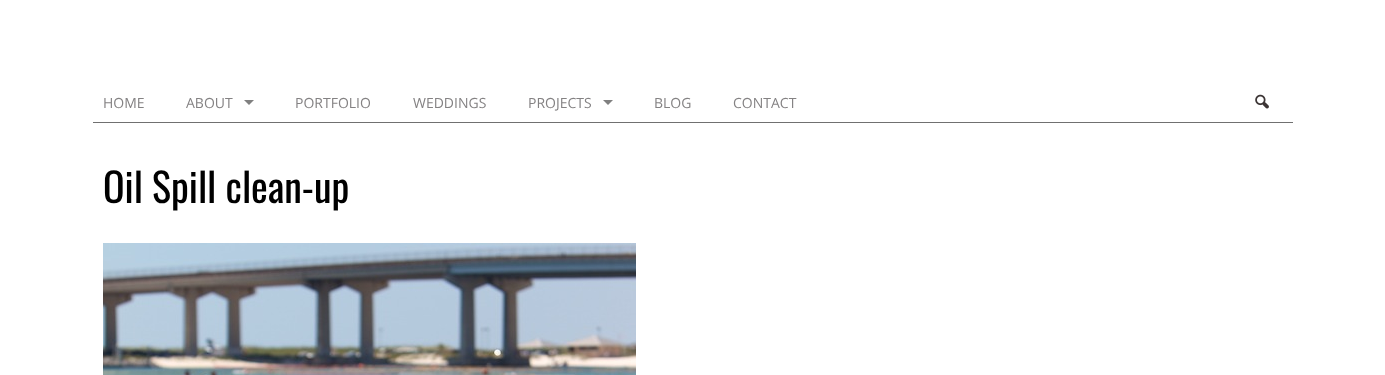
async function draw(canvas) {
  canvas.width = 1385
  canvas.height = 375
  const ctx = canvas.getContext('2d')
  ctx.miterLimit = 4
  ctx.fontKerning = 'normal'
  async function loadImage(src) {
    const img = new Image()
    img.src = src
    await img.decode()
    return img
  }

  ctx.fillStyle = '#fff'
  ctx.fillRect(0, 0, 1385, 375)
  ctx.fillStyle = '#707070'
  ctx.fillRect(93, 122, 1200, 1)
  ctx.font = '14px Open Sans'
  ctx.fillStyle = '#848283'
  ctx.fillText('HOME', 103, 108)
  ctx.fillText('ABOUT', 186, 108)
  ctx.fillStyle = '#808080'
  ctx.beginPath()
  ctx.moveTo(244, 100)
  ctx.lineTo(254, 100)
  ctx.lineTo(249, 105)
  ctx.closePath()
  ctx.fill()
  ctx.fillStyle = '#848283'
  ctx.fillText('PORTFOLIO', 295, 108)
  ctx.fillText('WEDDINGS', 413, 108)
  ctx.fillText('PROJECTS', 528, 108)
  ctx.fillStyle = '#808080'
  ctx.beginPath()
  ctx.moveTo(603, 100)
  ctx.lineTo(613, 100)
  ctx.lineTo(608, 105)
  ctx.closePath()
  ctx.fill()
  ctx.fillStyle = '#848283'
  ctx.fillText('BLOG', 654, 108)
  ctx.fillText('CONTACT', 733, 108)
  ctx.drawImage(await loadImage('image0.png'), 1255, 94, 14, 15)
  ctx.font = '40px Oswald'
  ctx.fillStyle = '#000'
  ctx.fillText('Oil Spill clean-up', 103, 203)
  ctx.drawImage(await loadImage('image1.png'), 103, 243, 533, 132)
}

draw(document.querySelector('canvas'))
